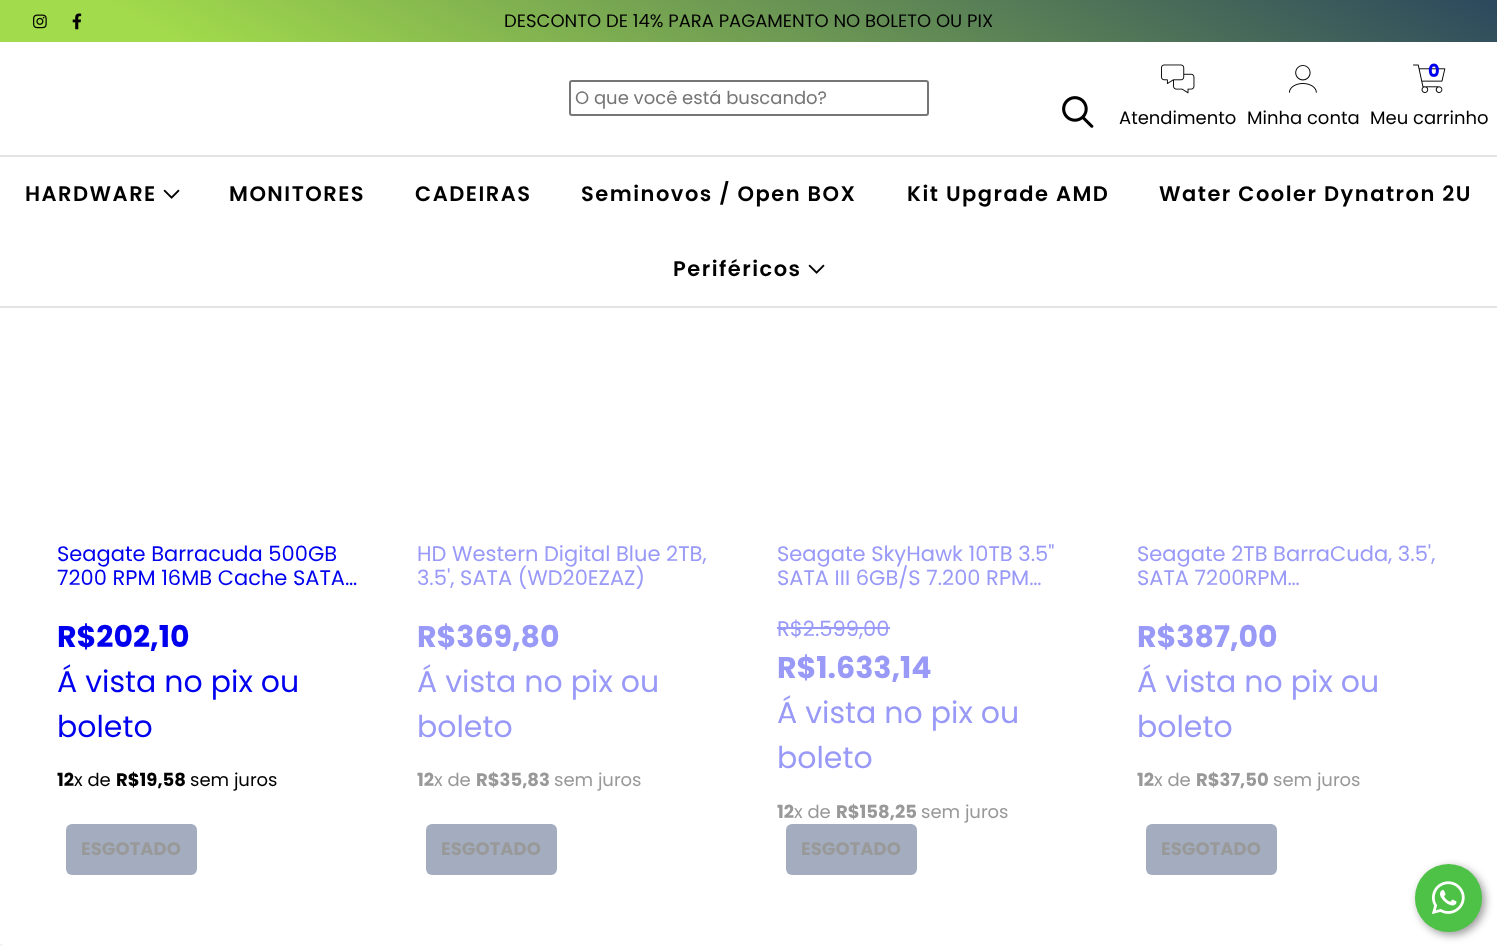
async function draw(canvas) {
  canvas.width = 1497
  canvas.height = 946
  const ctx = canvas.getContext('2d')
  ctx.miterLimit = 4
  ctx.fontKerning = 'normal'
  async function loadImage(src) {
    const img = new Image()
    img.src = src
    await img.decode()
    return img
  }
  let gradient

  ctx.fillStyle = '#fff'
  ctx.fillRect(0, 0, 1497, 946)
  gradient = ctx.createLinearGradient(564, 354, 981, -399)
  gradient.addColorStop(0.1, '#a2db4b')
  gradient.addColorStop(1, '#1a3360')
  ctx.fillStyle = gradient
  ctx.fillRect(0, 0, 1497, 42)
  ctx.drawImage(await loadImage('image0.png'), 33, 14, 14, 15)
  ctx.drawImage(await loadImage('image1.png'), 72, 13, 10, 17)
  ctx.font = '18px Poppins'
  ctx.fillStyle = '#000'
  ctx.fillText('DESCONTO DE 14% PARA PAGAMENTO NO BOLETO OU PIX', 504, 27)
  ctx.beginPath()
  ctx.roundRect(570, 81, 358, 34, 2)
  ctx.strokeStyle = '#767676'
  ctx.lineWidth = 2
  ctx.stroke()
  ctx.fillStyle = '#757575'
  ctx.fillText('O que você está buscando?', 575, 104)
  ctx.drawImage(await loadImage('image2.png'), 1062, 96, 32, 32)
  ctx.drawImage(await loadImage('image3.png'), 1161, 64, 34, 30)
  ctx.fillStyle = '#000'
  ctx.fillText('Atendimento', 1119, 124)
  ctx.drawImage(await loadImage('image4.png'), 1289, 65, 28, 28)
  ctx.fillText('Minha conta', 1247, 124)
  ctx.drawImage(await loadImage('image5.png'), 1413, 64, 33, 29)
  ctx.font = 'bold 18px Poppins'
  ctx.fillStyle = '#00e'
  ctx.fillText('0', 1428, 77)
  ctx.font = '18px Poppins'
  ctx.fillStyle = '#000'
  ctx.fillText('Meu carrinho', 1370, 124)
  ctx.fillStyle = '#e4e4e4'
  ctx.fillRect(0, 155, 1497, 2)
  ctx.fillRect(0, 306, 1497, 2)
  ctx.letterSpacing = '1.5px'
  ctx.font = '600 21px Poppins'
  ctx.fillStyle = '#000'
  ctx.fillText('HARDWARE', 25, 201)
  ctx.drawImage(await loadImage('image6.png'), 163, 189, 17, 10)
  ctx.fillText('MONITORES', 229, 201)
  ctx.fillText('CADEIRAS', 415, 201)
  ctx.fillText('Seminovos / Open BOX', 581, 201)
  ctx.fillText('Kit Upgrade AMD', 907, 201)
  ctx.fillText('Water Cooler Dynatron 2U', 1159, 201)
  ctx.fillText('Periféricos', 673, 276)
  ctx.drawImage(await loadImage('image6.png'), 808, 264, 17, 10)
  ctx.letterSpacing = '0px'
  ctx.font = '21px Poppins'
  ctx.fillStyle = '#00e'
  ctx.fillText('Seagate Barracuda 500GB', 57, 561)
  ctx.fillText('7200 RPM 16MB Cache SATA…', 57, 585)
  ctx.font = 'bold 30px Poppins'
  ctx.fillText('R$202,10', 57, 647)
  ctx.font = '30px Poppins'
  ctx.fillText('Á vista no pix ou', 57, 692)
  ctx.fillText('boleto', 57, 737)
  ctx.font = 'bold 18px Poppins'
  ctx.fillStyle = '#000'
  ctx.fillText('12', 57, 786)
  ctx.font = '18px Poppins'
  ctx.fillText('x de', 74, 786)
  ctx.font = 'bold 18px Poppins'
  ctx.fillText('R$19,58', 116, 786)
  ctx.font = '18px Poppins'
  ctx.fillText('sem juros', 190, 786)
  ctx.font = '21px Poppins'
  ctx.fillStyle = '#9999f8'
  ctx.fillText('HD Western Digital Blue 2TB,', 417, 561)
  ctx.fillText('3.5\', SATA (WD20EZAZ)', 417, 585)
  ctx.font = 'bold 30px Poppins'
  ctx.fillText('R$369,80', 417, 647)
  ctx.font = '30px Poppins'
  ctx.fillText('Á vista no pix ou', 417, 692)
  ctx.fillText('boleto', 417, 737)
  ctx.font = 'bold 18px Poppins'
  ctx.fillStyle = '#999'
  ctx.fillText('12', 417, 786)
  ctx.font = '18px Poppins'
  ctx.fillText('x de', 434, 786)
  ctx.font = 'bold 18px Poppins'
  ctx.fillText('R$35,83', 476, 786)
  ctx.font = '18px Poppins'
  ctx.fillText('sem juros', 554, 786)
  ctx.font = '21px Poppins'
  ctx.fillStyle = '#9999f8'
  ctx.fillText('Seagate SkyHawk 10TB 3.5"', 777, 561)
  ctx.fillText('SATA III 6GB/S 7.200 RPM…', 777, 585)
  ctx.fillText('R$2.599,00', 777, 636)
  ctx.fillRect(777, 627, 113, 2)
  ctx.font = 'bold 30px Poppins'
  ctx.fillText('R$1.633,14', 777, 678)
  ctx.font = '30px Poppins'
  ctx.fillText('Á vista no pix ou', 777, 723)
  ctx.fillText('boleto', 777, 768)
  ctx.font = 'bold 18px Poppins'
  ctx.fillStyle = '#999'
  ctx.fillText('12', 777, 818)
  ctx.font = '18px Poppins'
  ctx.fillText('x de', 794, 818)
  ctx.font = 'bold 18px Poppins'
  ctx.fillText('R$158,25', 836, 818)
  ctx.font = '18px Poppins'
  ctx.fillText('sem juros', 921, 818)
  ctx.font = '21px Poppins'
  ctx.fillStyle = '#9999f8'
  ctx.fillText('Seagate 2TB BarraCuda, 3.5\',', 1137, 561)
  ctx.fillText('SATA 7200RPM…', 1137, 585)
  ctx.font = 'bold 30px Poppins'
  ctx.fillText('R$387,00', 1137, 647)
  ctx.font = '30px Poppins'
  ctx.fillText('Á vista no pix ou', 1137, 692)
  ctx.fillText('boleto', 1137, 737)
  ctx.font = 'bold 18px Poppins'
  ctx.fillStyle = '#999'
  ctx.fillText('12', 1137, 786)
  ctx.font = '18px Poppins'
  ctx.fillText('x de', 1154, 786)
  ctx.font = 'bold 18px Poppins'
  ctx.fillText('R$37,50', 1196, 786)
  ctx.font = '18px Poppins'
  ctx.fillText('sem juros', 1273, 786)
  ctx.fillStyle = '#a3adbf'
  ctx.beginPath()
  ctx.roundRect(66, 824, 131, 51, 6)
  ctx.fill()
  ctx.font = 'bold 18px Poppins'
  ctx.fillStyle = '#999'
  ctx.fillText('ESGOTADO', 81, 855)
  ctx.fillStyle = '#a3adbf'
  ctx.beginPath()
  ctx.roundRect(426, 824, 131, 51, 6)
  ctx.fill()
  ctx.fillStyle = '#999'
  ctx.fillText('ESGOTADO', 441, 855)
  ctx.fillStyle = '#a3adbf'
  ctx.beginPath()
  ctx.roundRect(786, 824, 131, 51, 6)
  ctx.fill()
  ctx.fillStyle = '#999'
  ctx.fillText('ESGOTADO', 801, 855)
  ctx.fillStyle = '#a3adbf'
  ctx.beginPath()
  ctx.roundRect(1146, 824, 131, 51, 6)
  ctx.fill()
  ctx.fillStyle = '#999'
  ctx.fillText('ESGOTADO', 1161, 855)
  ctx.fillStyle = '#f5f5f5'
  ctx.fillRect(0, 944, 3, 2)
  ctx.fillStyle = '#00000066'
  ctx.filter = 'blur(4.5px)'
  ctx.beginPath()
  ctx.roundRect(1418, 867, 67, 68, 33.5)
  ctx.fill()
  ctx.filter = 'none'
  ctx.fillStyle = '#4dc247'
  ctx.beginPath()
  ctx.roundRect(1415, 864, 67, 68, 33.5)
  ctx.fill()
  ctx.drawImage(await loadImage('image7.png'), 1431, 881, 34, 34)
}

draw(document.querySelector('canvas'))
